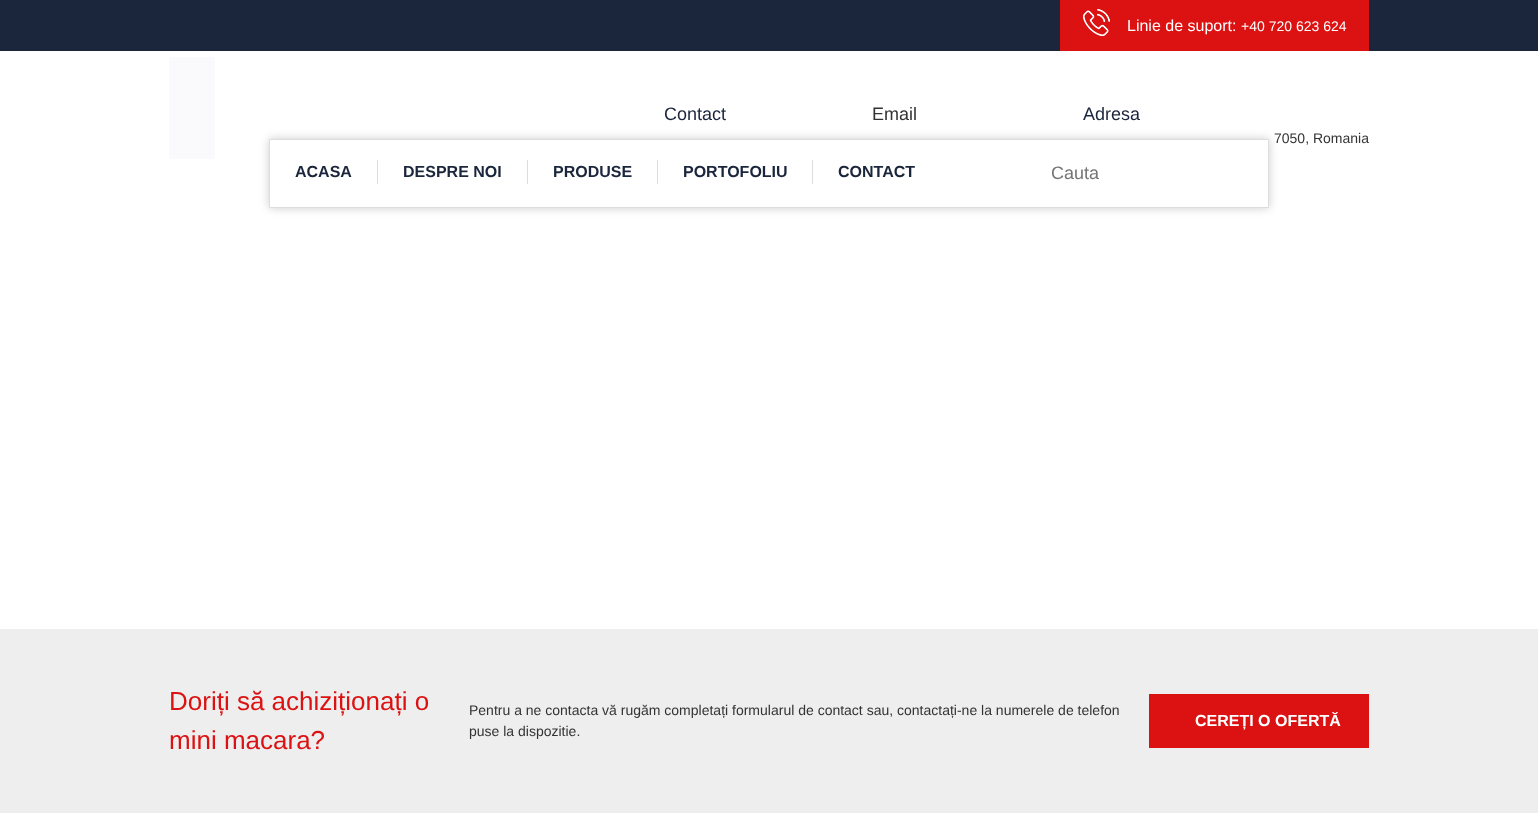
async function draw(canvas) {
  canvas.width = 1538
  canvas.height = 818
  const ctx = canvas.getContext('2d')
  ctx.miterLimit = 4
  ctx.fontKerning = 'normal'
  async function loadImage(src) {
    const img = new Image()
    img.src = src
    await img.decode()
    return img
  }

  ctx.fillStyle = '#fff'
  ctx.fillRect(0, 0, 1538, 818)
  ctx.fillStyle = '#1b263c'
  ctx.fillRect(0, 0, 1538, 51)
  ctx.fillStyle = '#dc1212'
  ctx.fillRect(1060, 0, 309, 51)
  ctx.drawImage(await loadImage('image0.png'), 1083, 9, 27, 27)
  ctx.font = '16px Liberation Sans'
  ctx.fillStyle = '#fff'
  ctx.fillText('Linie de suport:', 1127, 31)
  ctx.font = '14px Liberation Sans'
  ctx.fillText('+40 720 623 624', 1241, 31)
  ctx.fillStyle = '#fafafc'
  ctx.fillRect(169, 57, 46, 102)
  ctx.font = '18px Liberation Sans'
  ctx.fillStyle = '#1b263c'
  ctx.fillText('Contact', 664, 120)
  ctx.fillStyle = '#333'
  ctx.fillText('Email', 872, 120)
  ctx.fillStyle = '#1b263c'
  ctx.fillText('Adresa', 1083, 120)
  ctx.font = '14px Liberation Sans'
  ctx.fillStyle = '#333'
  ctx.fillText('7050, Romania', 1274, 143)
  ctx.fillStyle = '#00000033'
  ctx.filter = 'blur(5px)'
  ctx.beginPath()
  ctx.rect(269, 139, 1000, 69)
  ctx.fill()
  ctx.filter = 'none'
  ctx.fillStyle = '#fff'
  ctx.beginPath()
  ctx.rect(269.5, 139.5, 999, 68)
  ctx.fill()
  ctx.strokeStyle = '#ddd'
  ctx.stroke()
  ctx.fillStyle = '#ddd'
  ctx.fillRect(377, 160, 1, 24)
  ctx.font = 'bold 16px Liberation Sans'
  ctx.fillStyle = '#1b263c'
  ctx.fillText('ACASA', 295, 177)
  ctx.fillStyle = '#ddd'
  ctx.fillRect(527, 160, 1, 24)
  ctx.fillStyle = '#1b263c'
  ctx.fillText('DESPRE NOI', 403, 177)
  ctx.fillStyle = '#ddd'
  ctx.fillRect(657, 160, 1, 24)
  ctx.fillStyle = '#1b263c'
  ctx.fillText('PRODUSE', 553, 177)
  ctx.fillStyle = '#ddd'
  ctx.fillRect(812, 160, 1, 24)
  ctx.fillStyle = '#1b263c'
  ctx.fillText('PORTOFOLIU', 683, 177)
  ctx.fillText('CONTACT', 838, 177)
  ctx.font = '18px Liberation Sans'
  ctx.fillStyle = '#757575'
  ctx.fillText('Cauta', 1051, 179)
  ctx.fillStyle = '#eee'
  ctx.fillRect(0, 629, 1538, 184)
  ctx.font = '26px Liberation Sans'
  ctx.fillStyle = '#dc1212'
  ctx.fillText('Doriți să achiziționați o', 169, 710)
  ctx.fillText('mini macara?', 169, 749)
  ctx.font = '14px Liberation Sans'
  ctx.fillStyle = '#333'
  ctx.fillText('Pentru a ne contacta vă rugăm completați formularul de contact sau, contactați-ne la numerele de telefon', 469, 715)
  ctx.fillText('puse la dispozitie.', 469, 736)
  ctx.fillStyle = '#dc1212'
  ctx.fillRect(1149, 694, 220, 54)
  ctx.font = 'bold 16px Liberation Sans'
  ctx.fillStyle = '#fff'
  ctx.fillText('CEREȚI O OFERTĂ', 1195, 726)
}

draw(document.querySelector('canvas'))
